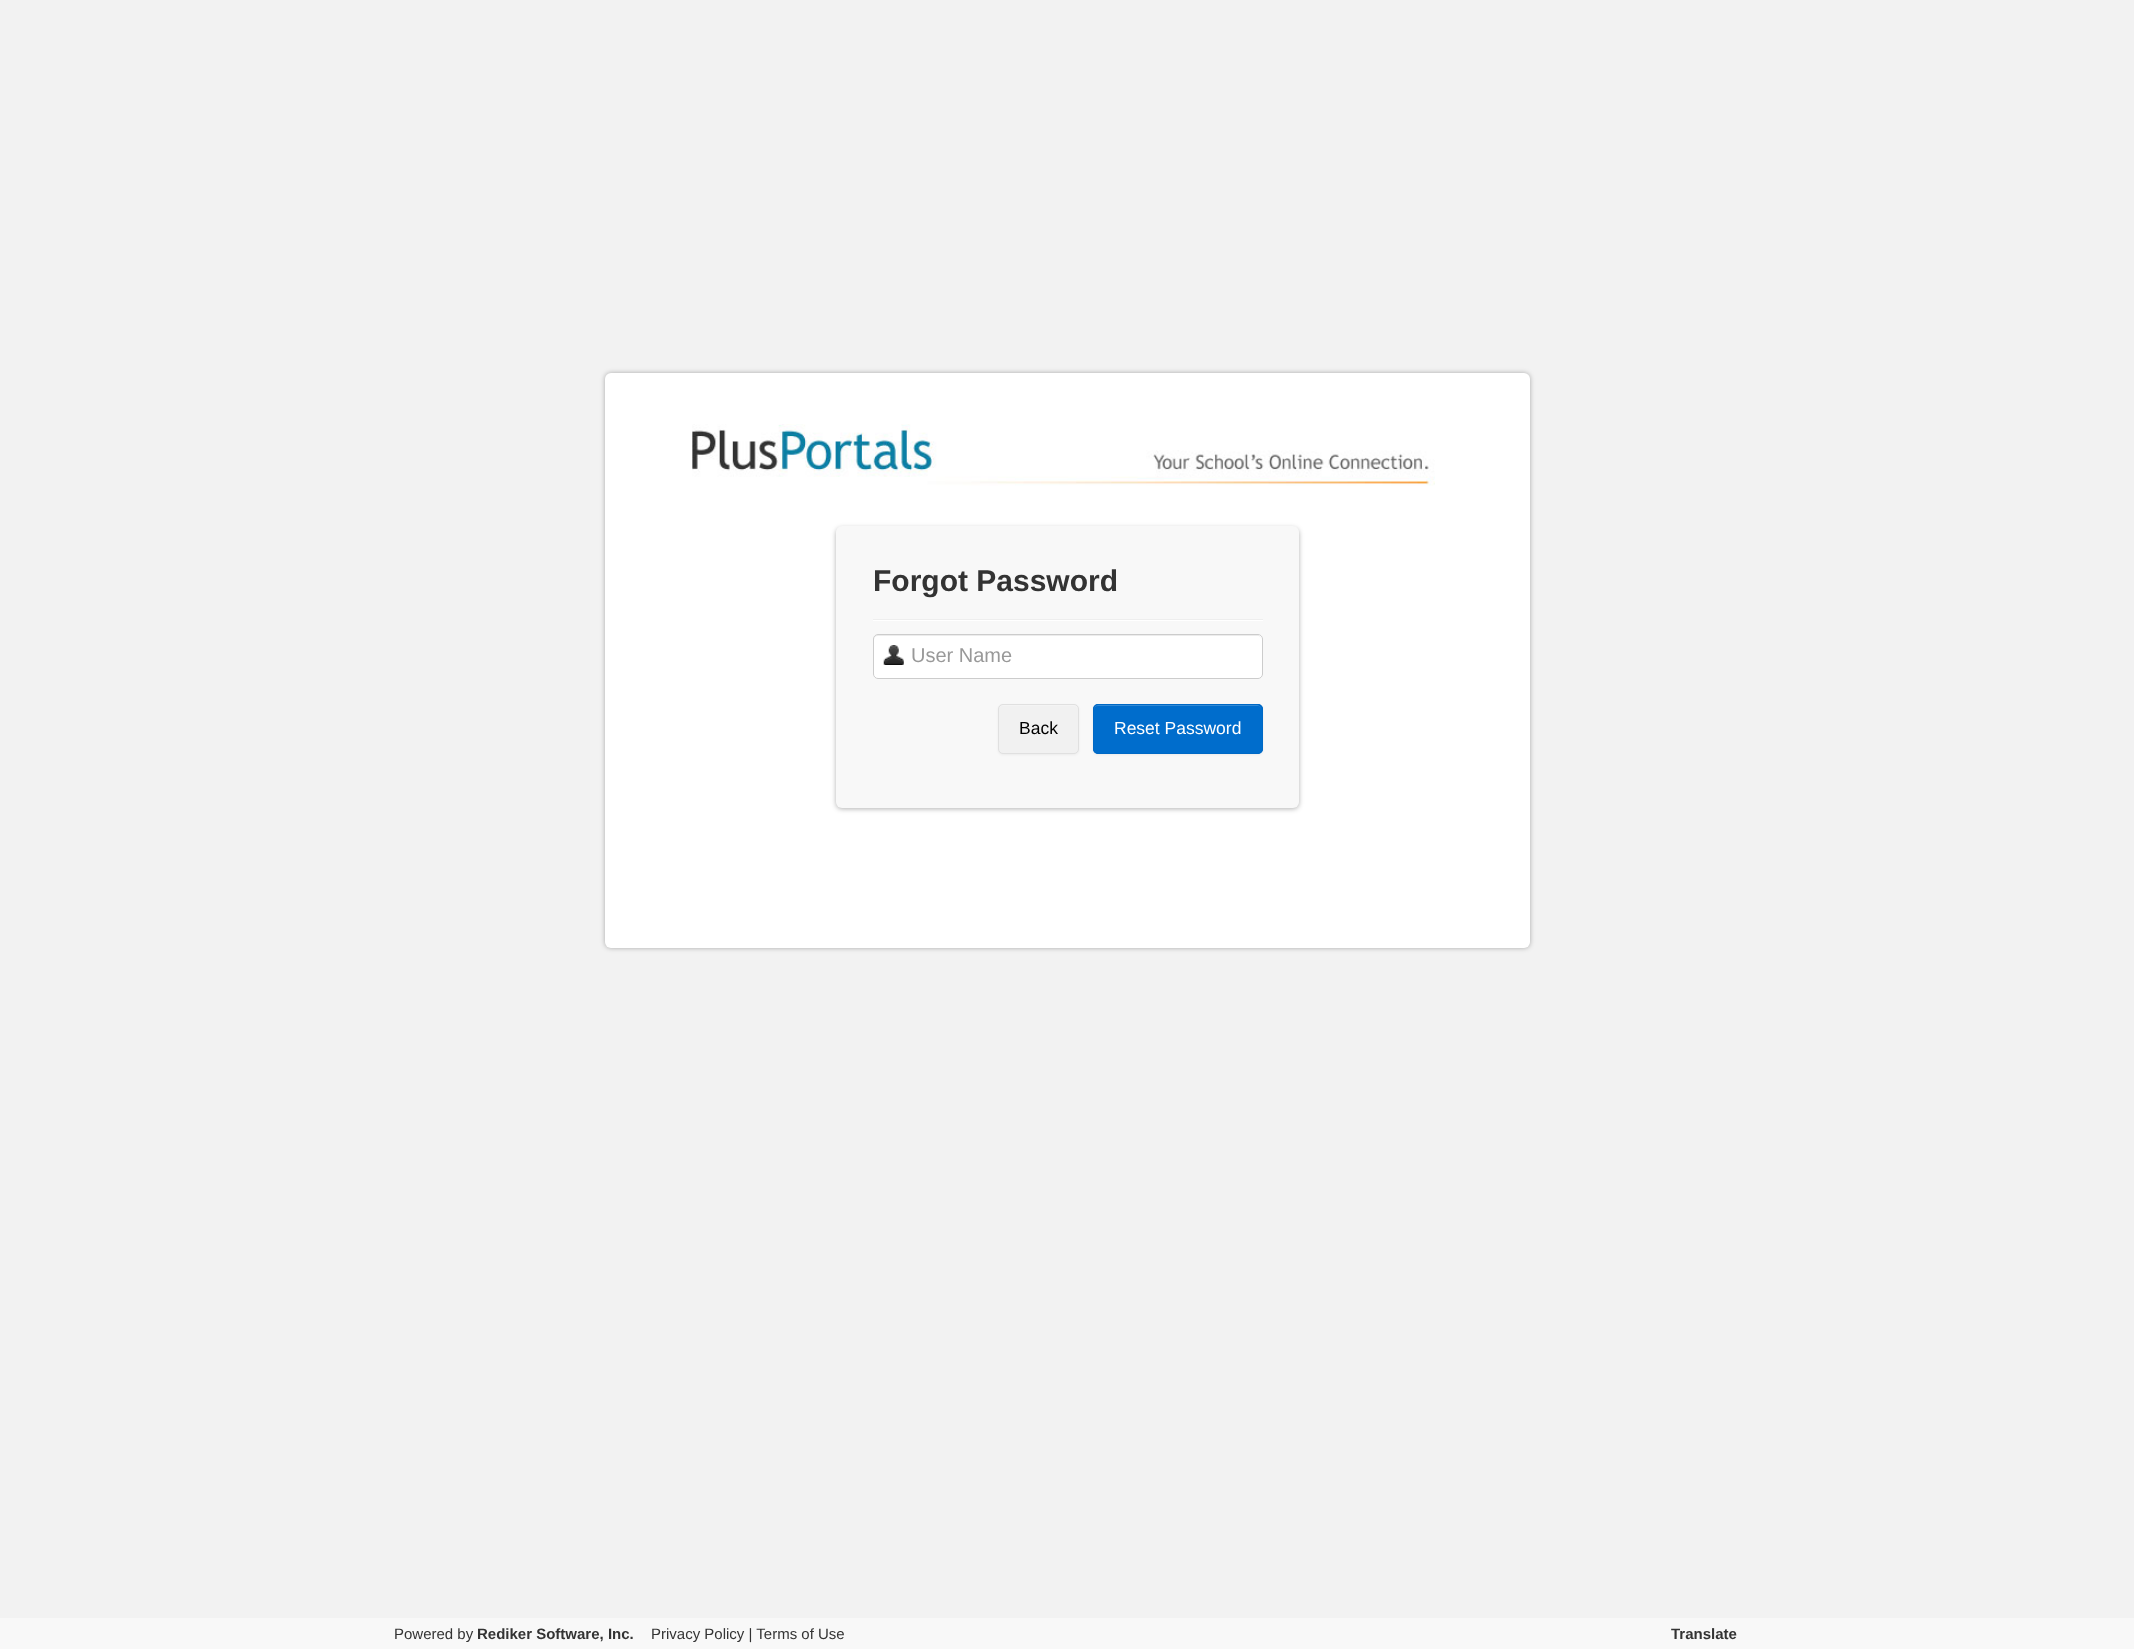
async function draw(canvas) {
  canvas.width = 2134
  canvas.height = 1649
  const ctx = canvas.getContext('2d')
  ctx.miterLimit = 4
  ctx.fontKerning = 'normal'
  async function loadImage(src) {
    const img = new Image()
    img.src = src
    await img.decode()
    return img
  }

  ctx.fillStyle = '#f2f2f2'
  ctx.fillRect(0, 0, 2134, 1649)
  ctx.fillStyle = '#0000004d'
  ctx.filter = 'blur(2.5px)'
  ctx.beginPath()
  ctx.roundRect(605, 373, 925, 575, 6)
  ctx.fill()
  ctx.filter = 'none'
  ctx.fillStyle = '#fff'
  ctx.beginPath()
  ctx.roundRect(605, 373, 925, 575, 6)
  ctx.fill()
  ctx.drawImage(await loadImage('image0.png'), 692, 424, 743, 62)
  ctx.fillStyle = '#0000004d'
  ctx.filter = 'blur(2.5px)'
  ctx.beginPath()
  ctx.roundRect(836, 528, 463, 281, 6)
  ctx.fill()
  ctx.filter = 'none'
  ctx.fillStyle = '#f8f8f8'
  ctx.beginPath()
  ctx.roundRect(836, 526, 463, 282, 6)
  ctx.fill()
  ctx.font = 'bold 30px Liberation Sans'
  ctx.fillStyle = '#333'
  ctx.fillText('Forgot Password', 873, 591)
  ctx.fillStyle = '#eee'
  ctx.fillRect(873, 619, 390, 1)
  ctx.fillStyle = '#fff'
  ctx.fillRect(873, 620, 390, 1)
  ctx.beginPath()
  ctx.roundRect(873, 634, 390, 45, 5)
  ctx.fill()
  ctx.drawImage(await loadImage('image1.png'), 883, 645, 21, 20)
  ctx.fillStyle = '#ececec'
  ctx.beginPath()
  ctx.moveTo(878, 636)
  ctx.lineTo(1258, 636)
  ctx.bezierCurveTo(1260, 636, 1261, 638, 1261, 640)
  ctx.bezierCurveTo(1261, 637, 1260, 635, 1257, 635)
  ctx.lineTo(878, 635)
  ctx.bezierCurveTo(875, 635, 874, 637, 874, 640)
  ctx.bezierCurveTo(874, 638, 875, 636, 878, 636)
  ctx.closePath()
  ctx.fill()
  ctx.beginPath()
  ctx.roundRect(873.5, 634.5, 389, 44, 4.5)
  ctx.strokeStyle = '#ccc'
  ctx.stroke()
  ctx.font = '20px Liberation Sans'
  ctx.fillStyle = '#999'
  ctx.fillText('User Name', 911, 662)
  ctx.fillStyle = '#0000000d'
  ctx.filter = 'blur(1px)'
  ctx.beginPath()
  ctx.roundRect(998, 705, 81, 50, 5)
  ctx.fill()
  ctx.filter = 'none'
  ctx.fillStyle = '#f1f1f1'
  ctx.beginPath()
  ctx.roundRect(998, 704, 81, 50, 5)
  ctx.fill()
  ctx.fillStyle = '#f4f4f4'
  ctx.beginPath()
  ctx.moveTo(1002, 706)
  ctx.lineTo(1074, 706)
  ctx.bezierCurveTo(1076, 706, 1078, 708, 1078, 710)
  ctx.bezierCurveTo(1078, 702, 1067, 705, 1062, 705)
  ctx.lineTo(1015, 705)
  ctx.bezierCurveTo(1010, 705, 999, 702, 999, 710)
  ctx.bezierCurveTo(999, 708, 1000, 706, 1002, 706)
  ctx.closePath()
  ctx.fill()
  ctx.beginPath()
  ctx.roundRect(998.5, 704.5, 80, 49, 4.5)
  ctx.strokeStyle = '#e0e0e0'
  ctx.stroke()
  ctx.font = '17.5px Liberation Sans'
  ctx.fillStyle = '#000'
  ctx.fillText('Back', 1019, 734)
  ctx.fillStyle = '#0000000d'
  ctx.filter = 'blur(1px)'
  ctx.beginPath()
  ctx.roundRect(1093, 705, 170, 50, 5)
  ctx.fill()
  ctx.filter = 'none'
  ctx.fillStyle = '#006dcc'
  ctx.beginPath()
  ctx.roundRect(1093, 704, 170, 50, 5)
  ctx.fill()
  ctx.fillStyle = '#338ad6'
  ctx.beginPath()
  ctx.moveTo(1098, 706)
  ctx.lineTo(1258, 706)
  ctx.bezierCurveTo(1260, 706, 1261, 708, 1261, 710)
  ctx.lineTo(1261, 709)
  ctx.bezierCurveTo(1261, 707, 1259, 705, 1257, 705)
  ctx.lineTo(1098, 705)
  ctx.bezierCurveTo(1096, 705, 1094, 707, 1094, 709)
  ctx.lineTo(1094, 710)
  ctx.bezierCurveTo(1094, 708, 1095, 706, 1098, 706)
  ctx.closePath()
  ctx.fill()
  ctx.beginPath()
  ctx.roundRect(1093.5, 704.5, 169, 49, 4.5)
  ctx.strokeStyle = '#0069c5'
  ctx.stroke()
  ctx.fillStyle = '#fff'
  ctx.fillText('Reset Password', 1114, 734)
  ctx.fillStyle = '#f8f8f8'
  ctx.fillRect(0, 1618, 2134, 31)
  ctx.font = '15px Liberation Sans'
  ctx.fillStyle = '#333'
  ctx.fillText('Powered by', 394, 1639)
  ctx.font = 'bold 15px Liberation Sans'
  ctx.fillText('Rediker Software, Inc.', 477, 1639)
  ctx.font = '15px Liberation Sans'
  ctx.fillText('Privacy Policy | Terms of Use', 651, 1639)
  ctx.font = 'bold 15px Liberation Sans'
  ctx.fillText('Translate', 1671, 1639)
}

draw(document.querySelector('canvas'))
